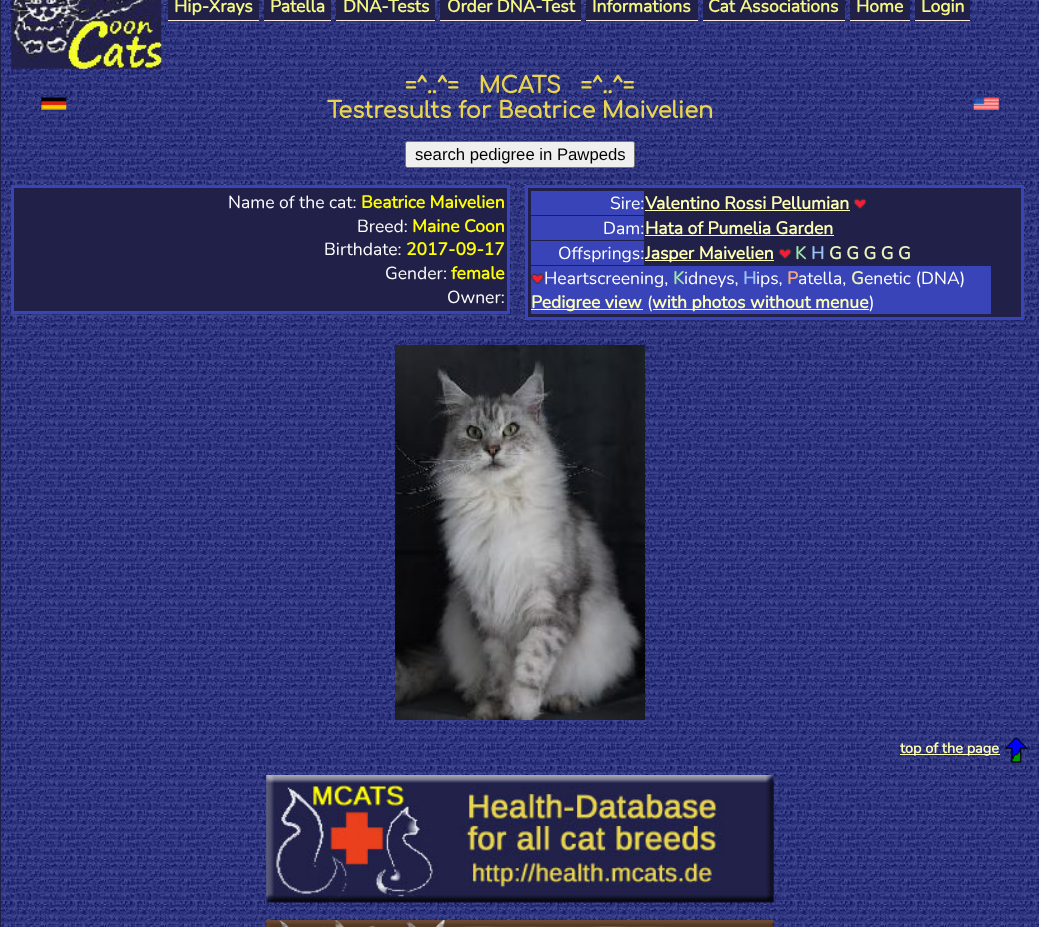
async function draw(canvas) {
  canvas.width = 1039
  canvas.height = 927
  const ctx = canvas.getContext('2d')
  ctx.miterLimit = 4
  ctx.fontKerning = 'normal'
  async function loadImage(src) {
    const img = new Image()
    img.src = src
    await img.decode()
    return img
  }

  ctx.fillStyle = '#202048'
  ctx.fillRect(0, 0, 1039, 927)
  ctx.drawImage(await loadImage('image0.png'), 1, 0, 1038, 927)
  ctx.drawImage(await loadImage('image1.png'), 11, 0, 151, 69)
  ctx.fillRect(168, 0, 91, 20)
  ctx.fillStyle = '#fcecd9'
  ctx.fillRect(168, 20, 91, 1)
  ctx.font = 'bold 17.5px Nunito'
  ctx.fillStyle = '#f5f883'
  ctx.fillText('Hip-Xrays', 174, 12)
  ctx.fillStyle = '#202048'
  ctx.fillRect(264, 0, 67, 20)
  ctx.fillStyle = '#fcecd9'
  ctx.fillRect(264, 20, 67, 1)
  ctx.fillStyle = '#f5f883'
  ctx.fillText('Patella', 270, 12)
  ctx.fillStyle = '#202048'
  ctx.fillRect(336, 0, 99, 20)
  ctx.fillStyle = '#fcecd9'
  ctx.fillRect(336, 20, 99, 1)
  ctx.fillStyle = '#f5f883'
  ctx.fillText('DNA-Tests', 343, 12)
  ctx.fillStyle = '#202048'
  ctx.fillRect(440, 0, 141, 20)
  ctx.fillStyle = '#fcecd9'
  ctx.fillRect(440, 20, 141, 1)
  ctx.fillStyle = '#f5f883'
  ctx.fillText('Order DNA-Test', 447, 12)
  ctx.fillStyle = '#202048'
  ctx.fillRect(586, 0, 112, 20)
  ctx.fillStyle = '#fcecd9'
  ctx.fillRect(586, 20, 112, 1)
  ctx.fillStyle = '#f5f883'
  ctx.fillText('Informations', 592, 12)
  ctx.fillStyle = '#202048'
  ctx.fillRect(703, 0, 142, 20)
  ctx.fillStyle = '#fcecd9'
  ctx.fillRect(703, 20, 142, 1)
  ctx.fillStyle = '#f5f883'
  ctx.fillText('Cat Associations', 708, 12)
  ctx.fillStyle = '#202048'
  ctx.fillRect(850, 0, 60, 20)
  ctx.fillStyle = '#fcecd9'
  ctx.fillRect(850, 20, 60, 1)
  ctx.fillStyle = '#f5f883'
  ctx.fillText('Home', 856, 12)
  ctx.fillStyle = '#202048'
  ctx.fillRect(915, 0, 55, 20)
  ctx.fillStyle = '#fcecd9'
  ctx.fillRect(915, 20, 55, 1)
  ctx.fillStyle = '#f5f883'
  ctx.fillText('Login', 921, 12)
  ctx.font = 'bold 22.5px Comfortaa'
  ctx.fillStyle = '#e8d450'
  ctx.fillText('=^..^=   MCATS   =^..^=', 405, 93)
  ctx.drawImage(await loadImage('image2.png'), 41, 97, 26, 13)
  ctx.fillText('Testresults for Beatrice Maivelien', 327, 118)
  ctx.drawImage(await loadImage('image3.png'), 973, 97, 26, 13)
  ctx.fillStyle = '#efefef'
  ctx.beginPath()
  ctx.roundRect(405.5, 141.5, 229, 26, 2)
  ctx.fill()
  ctx.strokeStyle = '#767676'
  ctx.stroke()
  ctx.font = '16.7px Liberation Sans'
  ctx.fillStyle = '#000'
  ctx.fillText('search pedigree in Pawpeds', 415, 160)
  ctx.fillStyle = '#202048'
  ctx.beginPath()
  ctx.rect(12.5, 186.5, 496, 126)
  ctx.fill()
  ctx.strokeStyle = '#3844b8'
  ctx.lineWidth = 3
  ctx.stroke()
  ctx.font = '200 17.5px Nunito'
  ctx.fillStyle = '#fff'
  ctx.fillText('Name of the cat:', 228, 208)
  ctx.font = 'bold 17.5px Nunito'
  ctx.fillStyle = '#ff0'
  ctx.fillText('Beatrice Maivelien', 361, 208)
  ctx.font = '200 17.5px Nunito'
  ctx.fillStyle = '#fff'
  ctx.fillText('Breed:', 357, 232)
  ctx.font = 'bold 17.5px Nunito'
  ctx.fillStyle = '#ff0'
  ctx.fillText('Maine Coon', 412, 232)
  ctx.font = '200 17.5px Nunito'
  ctx.fillStyle = '#fff'
  ctx.fillText('Birthdate:', 324, 255)
  ctx.font = 'bold 17.5px Nunito'
  ctx.fillStyle = '#ff0'
  ctx.fillText('2017-09-17', 406, 255)
  ctx.font = '200 17.5px Nunito'
  ctx.fillStyle = '#fff'
  ctx.fillText('Gender:', 385, 279)
  ctx.font = 'bold 17.5px Nunito'
  ctx.fillStyle = '#ff0'
  ctx.fillText('female', 451, 279)
  ctx.font = '200 17.5px Nunito'
  ctx.fillStyle = '#fff'
  ctx.fillText('Owner:', 447, 303)
  ctx.fillStyle = '#202048'
  ctx.beginPath()
  ctx.rect(526.5, 186.5, 496, 132)
  ctx.fill()
  ctx.stroke()
  ctx.fillStyle = '#3844b8'
  ctx.fillRect(531, 191, 113, 24)
  ctx.fillStyle = '#fff'
  ctx.fillText('Sire:', 610, 209)
  ctx.font = 'bold 17.5px Nunito'
  ctx.fillStyle = '#ffffb4'
  ctx.fillText('Valentino Rossi Pellumian', 645, 209)
  ctx.fillRect(645, 210, 205, 1)
  ctx.drawImage(await loadImage('image4.png'), 853, 198, 14, 11)
  ctx.fillStyle = '#3844b8'
  ctx.fillRect(531, 216, 113, 24)
  ctx.font = '200 17.5px Nunito'
  ctx.fillStyle = '#fff'
  ctx.fillText('Dam:', 603, 234)
  ctx.font = 'bold 17.5px Nunito'
  ctx.fillStyle = '#ffffb4'
  ctx.fillText('Hata of Pumelia Garden', 645, 234)
  ctx.fillRect(645, 235, 189, 1)
  ctx.fillStyle = '#3844b8'
  ctx.fillRect(531, 241, 113, 24)
  ctx.font = '200 17.5px Nunito'
  ctx.fillStyle = '#fff'
  ctx.fillText('Offsprings:', 558, 259)
  ctx.fillStyle = '#ffffb4'
  ctx.fillRect(645, 260, 129, 1)
  ctx.font = 'bold 17.5px Nunito'
  ctx.fillText('Jasper Maivelien', 645, 259)
  ctx.drawImage(await loadImage('image4.png'), 778, 248, 14, 11)
  ctx.fillStyle = '#9fe7a7'
  ctx.fillText('K', 795, 259)
  ctx.fillStyle = '#98c3f4'
  ctx.fillText('H', 811, 259)
  ctx.fillStyle = '#eaf4ba'
  ctx.fillText('G G G G G', 829, 259)
  ctx.fillStyle = '#3844b8'
  ctx.fillRect(531, 266, 460, 48)
  ctx.drawImage(await loadImage('image5.png'), 531, 273, 13, 11)
  ctx.font = '200 17.5px Nunito'
  ctx.fillStyle = '#fff'
  ctx.fillText('Heartscreening,', 544, 284)
  ctx.font = 'bold 17.5px Nunito'
  ctx.fillStyle = '#9fe7a7'
  ctx.fillText('K', 673, 284)
  ctx.font = '200 17.5px Nunito'
  ctx.fillStyle = '#fff'
  ctx.fillText('idneys,', 684, 284)
  ctx.font = 'bold 17.5px Nunito'
  ctx.fillStyle = '#98c3f4'
  ctx.fillText('H', 743, 284)
  ctx.font = '200 17.5px Nunito'
  ctx.fillStyle = '#fff'
  ctx.fillText('ips,', 756, 284)
  ctx.font = 'bold 17.5px Nunito'
  ctx.fillStyle = '#f6aa80'
  ctx.fillText('P', 787, 284)
  ctx.font = '200 17.5px Nunito'
  ctx.fillStyle = '#fff'
  ctx.fillText('atella,', 798, 284)
  ctx.font = 'bold 17.5px Nunito'
  ctx.fillStyle = '#eaf4ba'
  ctx.fillText('G', 851, 284)
  ctx.font = '200 17.5px Nunito'
  ctx.fillStyle = '#fff'
  ctx.fillText('enetic (DNA)', 864, 284)
  ctx.fillStyle = '#ffffb4'
  ctx.fillRect(531, 309, 112, 1)
  ctx.font = 'bold 17.5px Nunito'
  ctx.fillText('Pedigree view', 531, 308)
  ctx.font = '200 17.5px Nunito'
  ctx.fillStyle = '#fff'
  ctx.fillText('(', 647, 308)
  ctx.fillStyle = '#ffffb4'
  ctx.fillRect(653, 309, 216, 1)
  ctx.font = 'bold 17.5px Nunito'
  ctx.fillText('with photos without menue', 652, 308)
  ctx.font = '200 17.5px Nunito'
  ctx.fillStyle = '#fff'
  ctx.fillText(')', 869, 308)
  ctx.drawImage(await loadImage('image6.png'), 395, 345, 250, 375)
  ctx.fillStyle = '#ffffb4'
  ctx.fillRect(900, 754, 100, 1)
  ctx.font = 'bold 14.5px Nunito'
  ctx.fillText('top of the page', 900, 753)
  ctx.drawImage(await loadImage('image7.png'), 1004, 737, 24, 26)
  ctx.drawImage(await loadImage('image8.png'), 266, 775, 508, 128)
  ctx.drawImage(await loadImage('image9.png'), 266, 920, 508, 7)
}

draw(document.querySelector('canvas'))
